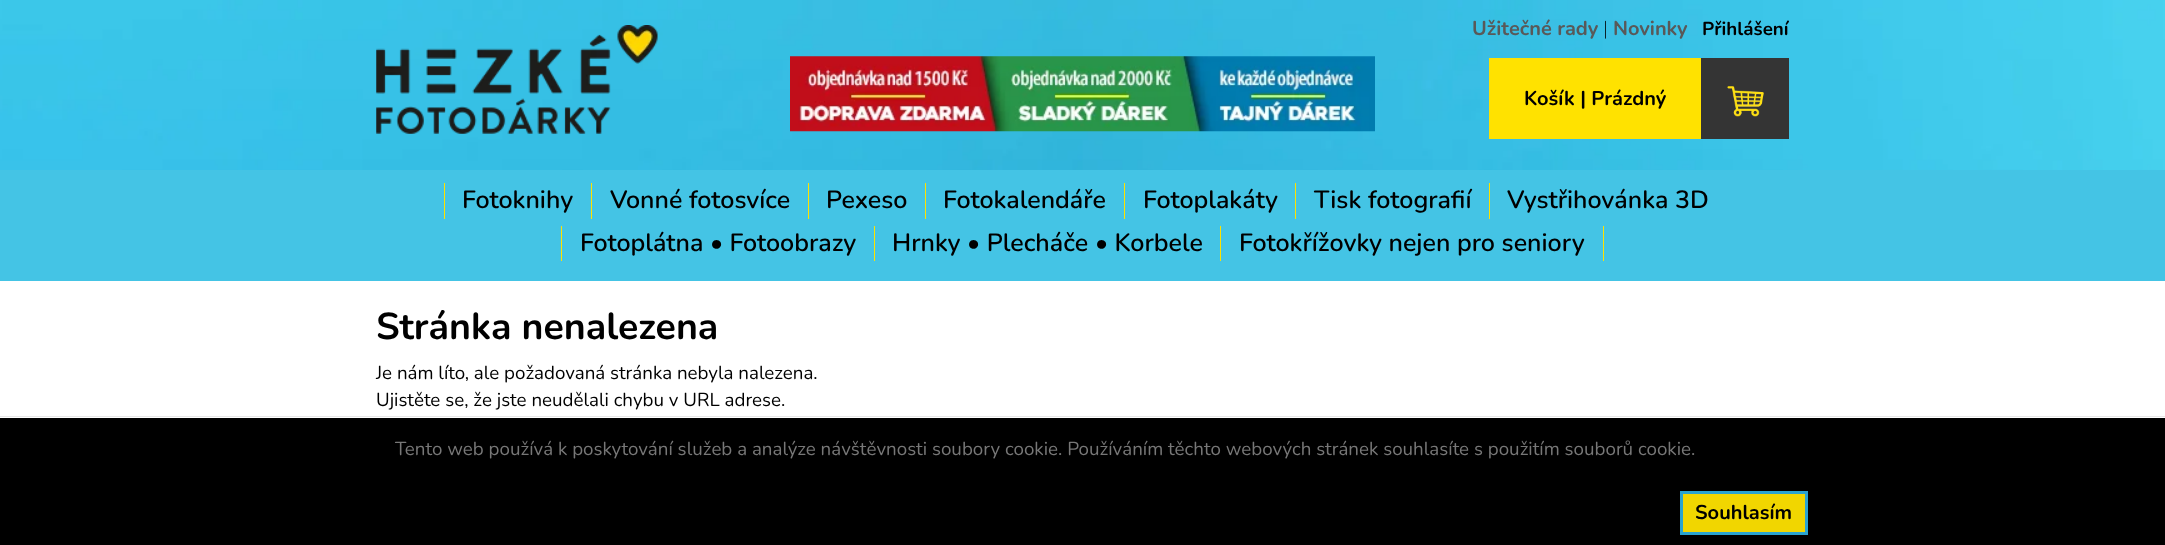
async function draw(canvas) {
  canvas.width = 2165
  canvas.height = 545
  const ctx = canvas.getContext('2d')
  ctx.miterLimit = 4
  ctx.fontKerning = 'normal'
  async function loadImage(src) {
    const img = new Image()
    img.src = src
    await img.decode()
    return img
  }

  ctx.fillStyle = '#fff'
  ctx.fillRect(0, 0, 2165, 545)
  ctx.drawImage(await loadImage('image0.png'), 0, 0, 2165, 170)
  ctx.drawImage(await loadImage('image1.png'), 376, 25, 282, 109)
  ctx.drawImage(await loadImage('image2.png'), 790, 56, 585, 76)
  ctx.font = 'bold 20px Nunito'
  ctx.fillStyle = '#595959'
  ctx.fillText('Užitečné rady', 1472, 35)
  ctx.font = '200 20px Nunito'
  ctx.fillStyle = '#000'
  ctx.fillText('|', 1603, 35)
  ctx.font = 'bold 20px Nunito'
  ctx.fillStyle = '#595959'
  ctx.fillText('Novinky', 1613, 35)
  ctx.font = 'bold 18.75px Nunito'
  ctx.fillStyle = '#000'
  ctx.fillText('Přihlášení', 1702, 35)
  ctx.fillStyle = '#343434'
  ctx.fillRect(1701, 58, 88, 81)
  ctx.fillStyle = '#ffe200'
  ctx.fillRect(1489, 58, 212, 81)
  ctx.font = 'bold 20px Nunito'
  ctx.fillStyle = '#000'
  ctx.fillText('Košík | Prázdný', 1524, 105)
  ctx.drawImage(await loadImage('image3.png'), 1727, 86, 37, 31)
  ctx.fillStyle = '#44c4e5'
  ctx.fillRect(0, 170, 2165, 111)
  ctx.fillStyle = '#ffe200'
  ctx.fillRect(444, 183, 1, 36)
  ctx.font = '600 25px Nunito'
  ctx.fillStyle = '#000'
  ctx.fillText('Fotoknihy', 462, 208)
  ctx.fillStyle = '#ffe200'
  ctx.fillRect(591, 183, 1, 36)
  ctx.fillStyle = '#000'
  ctx.fillText('Vonné fotosvíce', 610, 208)
  ctx.fillStyle = '#ffe200'
  ctx.fillRect(808, 183, 1, 36)
  ctx.fillStyle = '#000'
  ctx.fillText('Pexeso', 826, 208)
  ctx.fillStyle = '#ffe200'
  ctx.fillRect(925, 183, 1, 36)
  ctx.fillStyle = '#000'
  ctx.fillText('Fotokalendáře', 943, 208)
  ctx.fillStyle = '#ffe200'
  ctx.fillRect(1124, 183, 1, 36)
  ctx.fillStyle = '#000'
  ctx.fillText('Fotoplakáty', 1143, 208)
  ctx.fillStyle = '#ffe200'
  ctx.fillRect(1295, 183, 1, 36)
  ctx.fillStyle = '#000'
  ctx.fillText('Tisk fotografií', 1314, 208)
  ctx.fillStyle = '#ffe200'
  ctx.fillRect(1489, 183, 1, 36)
  ctx.fillStyle = '#000'
  ctx.fillText('Vystřihovánka 3D', 1507, 208)
  ctx.fillStyle = '#ffe200'
  ctx.fillRect(561, 226, 1, 35)
  ctx.fillStyle = '#000'
  ctx.fillText('Fotoplátna • Fotoobrazy', 580, 251)
  ctx.fillStyle = '#ffe200'
  ctx.fillRect(874, 226, 1, 35)
  ctx.fillStyle = '#000'
  ctx.fillText('Hrnky • Plecháče • Korbele', 892, 251)
  ctx.fillStyle = '#ffe200'
  ctx.fillRect(1603, 226, 1, 35)
  ctx.fillRect(1220, 226, 1, 35)
  ctx.fillStyle = '#000'
  ctx.fillText('Fotokřížovky nejen pro seniory', 1239, 251)
  ctx.font = 'bold 37.5px Nunito'
  ctx.fillText('Stránka nenalezena', 376, 339)
  ctx.font = '18.75px Nunito'
  ctx.fillText('Je nám líto, ale požadovaná stránka nebyla nalezena.', 376, 379)
  ctx.fillText('Ujistěte se, že jste neudělali chybu v URL adrese.', 376, 406)
  ctx.fillRect(0, 418, 2165, 127)
  ctx.fillStyle = '#e7e7e7'
  ctx.fillRect(0, 416, 2165, 1)
  ctx.fillStyle = '#777'
  ctx.fillText('Tento web používá k poskytování služeb a analýze návštěvnosti soubory cookie. Používáním těchto webových stránek souhlasíte s použitím souborů cookie.', 395, 455)
  ctx.fillStyle = '#f1d600'
  ctx.beginPath()
  ctx.rect(1681.5, 492.5, 125, 41)
  ctx.fill()
  ctx.strokeStyle = '#2aa3cf'
  ctx.lineWidth = 3
  ctx.stroke()
  ctx.font = 'bold 20px Nunito'
  ctx.fillStyle = '#000'
  ctx.fillText('Souhlasím', 1695, 519)
}

draw(document.querySelector('canvas'))
